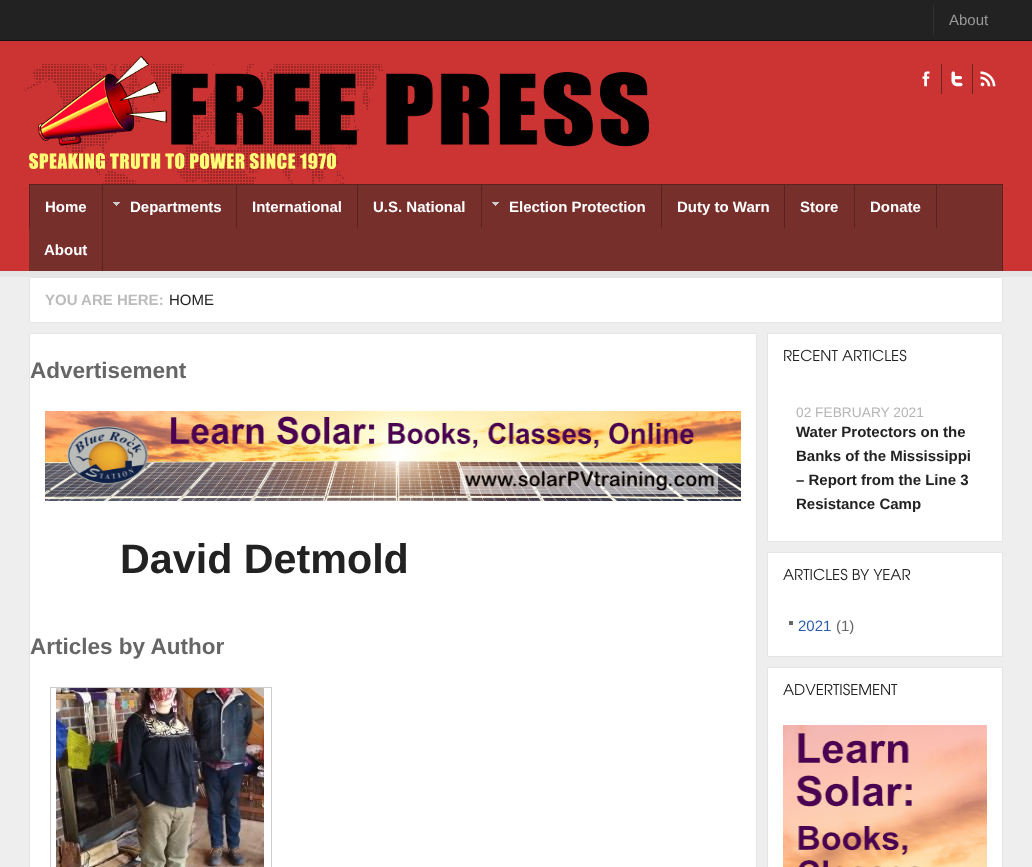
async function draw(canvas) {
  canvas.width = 1032
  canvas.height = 867
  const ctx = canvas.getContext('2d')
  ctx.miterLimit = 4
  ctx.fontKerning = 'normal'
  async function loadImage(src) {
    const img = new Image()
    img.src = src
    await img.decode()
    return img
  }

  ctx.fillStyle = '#eee'
  ctx.fillRect(0, 0, 1032, 867)
  ctx.fillStyle = '#222'
  ctx.fillRect(0, 0, 1032, 40)
  ctx.fillStyle = '#111'
  ctx.fillRect(0, 40, 1032, 1)
  ctx.fillStyle = '#333'
  ctx.fillRect(933, 5, 1, 30)
  ctx.font = '15px Liberation Sans'
  ctx.fillStyle = '#999'
  ctx.fillText('About', 949, 25)
  ctx.fillStyle = '#c33'
  ctx.fillRect(0, 41, 1032, 230)
  ctx.drawImage(await loadImage('image0.png'), 25, 64, 358, 120)
  ctx.drawImage(await loadImage('image1.png'), 29, 56, 620, 113)
  ctx.drawImage(await loadImage('image2.png'), 922, 71, 8, 16)
  ctx.drawImage(await loadImage('image3.png'), 951, 71, 12, 16)
  ctx.fillStyle = '#682725'
  ctx.fillRect(941, 64, 1, 30)
  ctx.drawImage(await loadImage('image4.png'), 980, 71, 16, 16)
  ctx.fillRect(972, 64, 1, 30)
  ctx.fillStyle = '#e5e5e5'
  ctx.fillRect(0, 271, 1032, 6)
  ctx.fillStyle = '#772f2c'
  ctx.fillRect(29, 185, 973, 86)
  ctx.fillStyle = '#5b211f'
  ctx.fillRect(29, 184, 974, 1)
  ctx.fillRect(1002, 184, 1, 87)
  ctx.fillRect(102, 185, 1, 86)
  ctx.fillRect(29, 185, 1, 43)
  ctx.font = 'bold 15px Liberation Sans'
  ctx.fillStyle = '#fff'
  ctx.fillText('Home', 45, 212)
  ctx.fillStyle = '#5b211f'
  ctx.fillRect(236, 185, 1, 43)
  ctx.drawImage(await loadImage('image5.png'), 113, 202, 7, 4)
  ctx.fillStyle = '#fff'
  ctx.fillText('Departments', 130, 212)
  ctx.fillStyle = '#5b211f'
  ctx.fillRect(357, 185, 1, 43)
  ctx.fillStyle = '#fff'
  ctx.fillText('International', 252, 212)
  ctx.fillStyle = '#5b211f'
  ctx.fillRect(481, 185, 1, 43)
  ctx.fillStyle = '#fff'
  ctx.fillText('U.S. National', 373, 212)
  ctx.fillStyle = '#5b211f'
  ctx.fillRect(661, 185, 1, 43)
  ctx.drawImage(await loadImage('image5.png'), 492, 202, 7, 4)
  ctx.fillStyle = '#fff'
  ctx.fillText('Election Protection', 509, 212)
  ctx.fillStyle = '#5b211f'
  ctx.fillRect(784, 185, 1, 43)
  ctx.fillStyle = '#fff'
  ctx.fillText('Duty to Warn', 677, 212)
  ctx.fillStyle = '#5b211f'
  ctx.fillRect(854, 185, 1, 43)
  ctx.fillStyle = '#fff'
  ctx.fillText('Store', 800, 212)
  ctx.fillStyle = '#5b211f'
  ctx.fillRect(936, 185, 1, 43)
  ctx.fillStyle = '#fff'
  ctx.fillText('Donate', 870, 212)
  ctx.fillText('About', 44, 255)
  ctx.beginPath()
  ctx.rect(29.5, 277.5, 973, 45)
  ctx.fill()
  ctx.strokeStyle = '#e5e5e5'
  ctx.stroke()
  ctx.fillStyle = '#bbb'
  ctx.fillText('YOU ARE HERE:', 45, 305)
  ctx.font = '15px Liberation Sans'
  ctx.fillStyle = '#222'
  ctx.fillText('HOME', 169, 305)
  ctx.fillStyle = '#fff'
  ctx.beginPath()
  ctx.rect(29.5, 333.5, 727, 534)
  ctx.fill()
  ctx.stroke()
  ctx.font = 'bold 22.5px Liberation Sans'
  ctx.fillStyle = '#666'
  ctx.fillText('Advertisement', 30, 378)
  ctx.drawImage(await loadImage('image6.png'), 45, 411, 696, 90)
  ctx.font = 'bold 41.25px Liberation Sans'
  ctx.fillStyle = '#222'
  ctx.fillText('David Detmold', 120, 573)
  ctx.font = 'bold 22.5px Liberation Sans'
  ctx.fillStyle = '#666'
  ctx.fillText('Articles by Author', 30, 654)
  ctx.strokeStyle = '#ccc'
  ctx.strokeRect(50.5, 687.5, 221, 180)
  ctx.drawImage(await loadImage('image7.png'), 56, 688, 208, 179)
  ctx.fillStyle = '#fff'
  ctx.beginPath()
  ctx.rect(767.5, 333.5, 235, 208)
  ctx.fill()
  ctx.strokeStyle = '#e5e5e5'
  ctx.stroke()
  ctx.font = '15px TeX Gyre Adventor'
  ctx.fillStyle = '#222'
  ctx.fillText('RECENT ARTICLES', 783, 361)
  ctx.font = '13.75px Liberation Sans'
  ctx.fillStyle = '#b5b5b5'
  ctx.fillText('02 FEBRUARY 2021', 796, 417)
  ctx.font = 'bold 15px Liberation Sans'
  ctx.fillStyle = '#222'
  ctx.fillText('Water Protectors on the', 796, 437)
  ctx.fillText('Banks of the Mississippi', 796, 461)
  ctx.fillText('– Report from the Line 3', 796, 485)
  ctx.fillText('Resistance Camp', 796, 509)
  ctx.fillStyle = '#fff'
  ctx.beginPath()
  ctx.rect(767.5, 552.5, 235, 104)
  ctx.fill()
  ctx.stroke()
  ctx.font = '15px TeX Gyre Adventor'
  ctx.fillStyle = '#222'
  ctx.fillText('ARTICLES BY YEAR', 783, 580)
  ctx.fillStyle = '#666'
  ctx.fillRect(789, 621, 4, 4)
  ctx.font = '15px Liberation Sans'
  ctx.fillStyle = '#2a5db0'
  ctx.fillText('2021', 798, 631)
  ctx.fillStyle = '#666'
  ctx.fillText('(1)', 836, 631)
  ctx.fillStyle = '#fff'
  ctx.beginPath()
  ctx.rect(767.5, 667.5, 235, 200)
  ctx.fill()
  ctx.stroke()
  ctx.font = '15px TeX Gyre Adventor'
  ctx.fillStyle = '#222'
  ctx.fillText('ADVERTISEMENT', 783, 695)
  ctx.drawImage(await loadImage('image8.png'), 783, 725, 204, 142)
}

draw(document.querySelector('canvas'))
